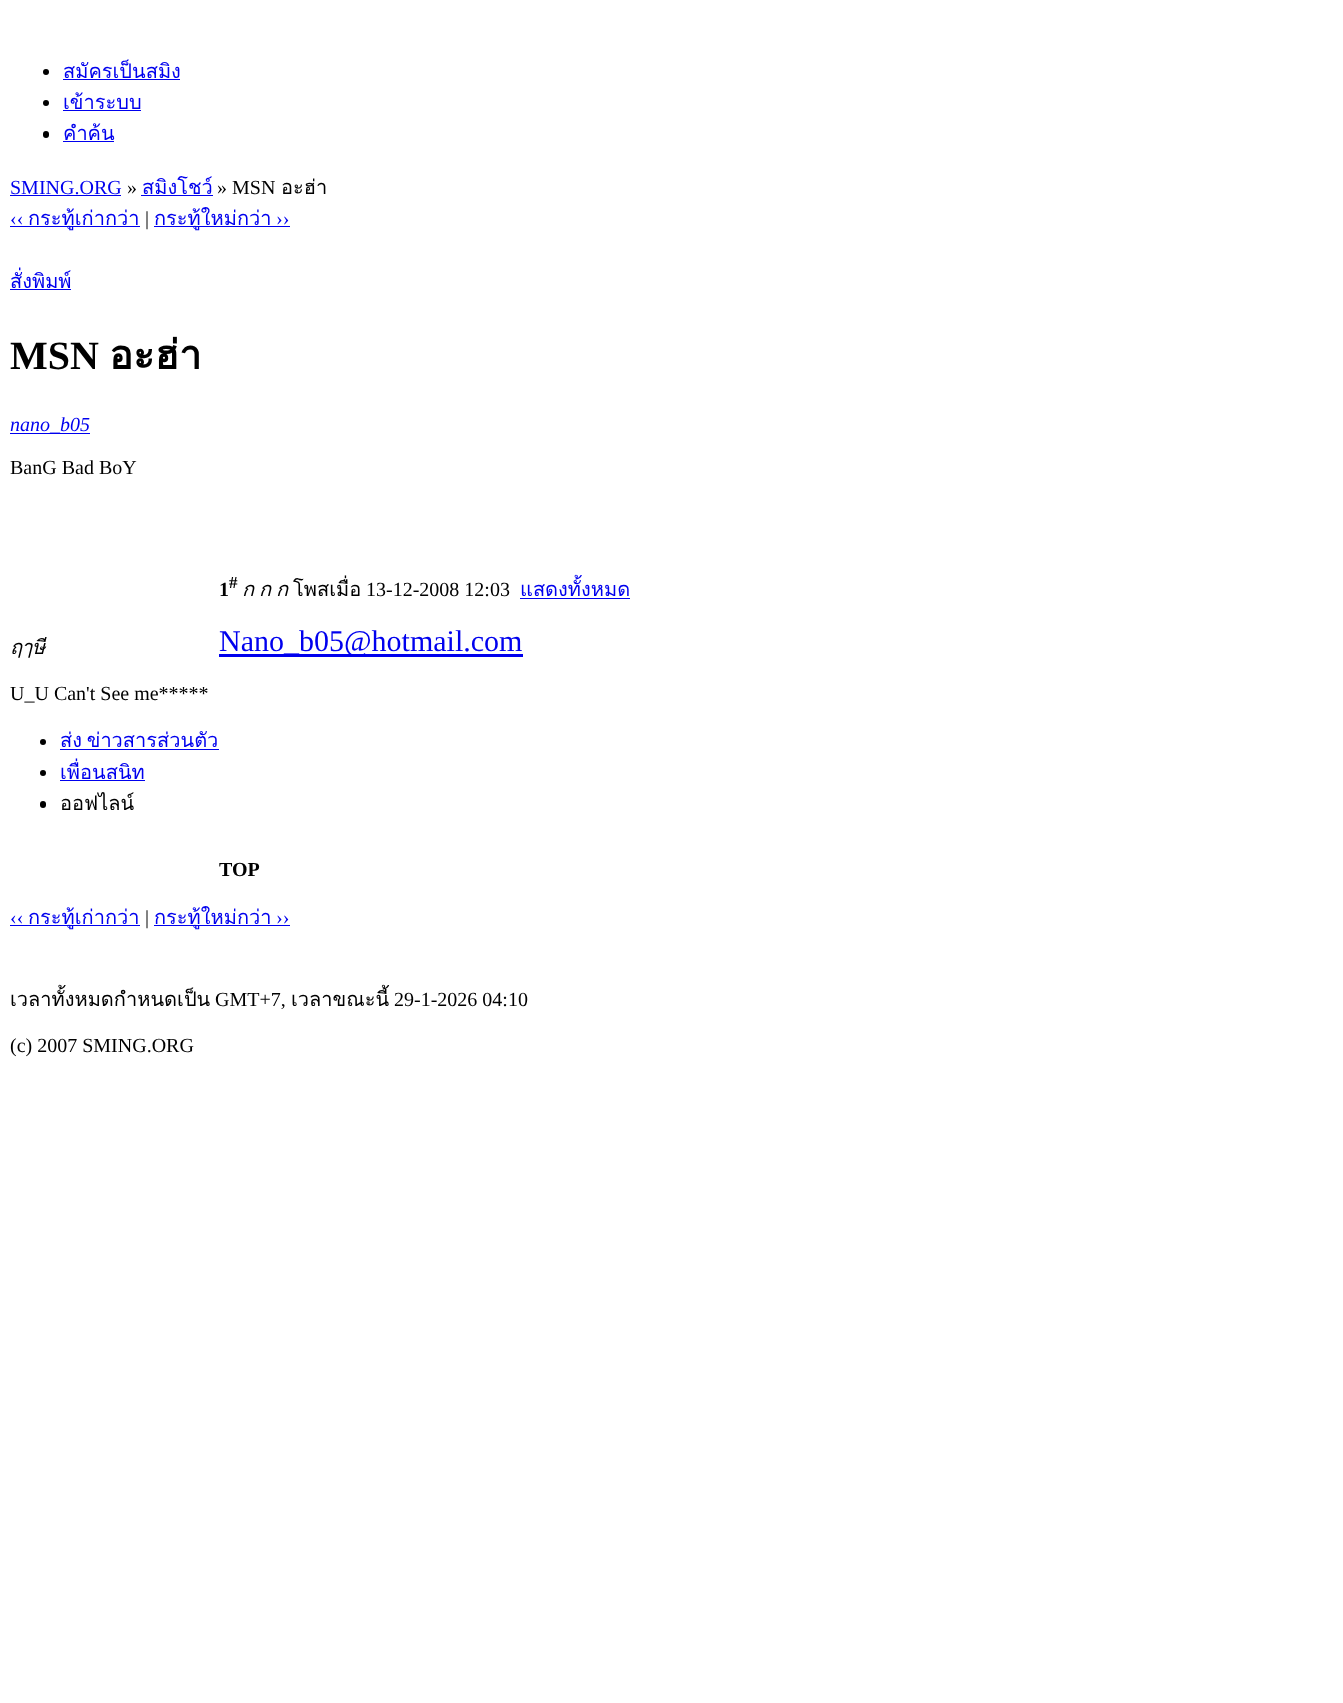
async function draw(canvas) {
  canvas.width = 1343
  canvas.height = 1703
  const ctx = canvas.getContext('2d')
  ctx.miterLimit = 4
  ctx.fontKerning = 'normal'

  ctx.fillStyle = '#fff'
  ctx.fillRect(0, 0, 1343, 1703)
  ctx.fillStyle = '#000'
  ctx.beginPath()
  ctx.arc(46, 72, 3, 0, 2 * Math.PI)
  ctx.fill()
  ctx.font = '20px Loma'
  ctx.fillStyle = '#00e'
  ctx.fillText('สมัครเป็นสมิง', 63, 78)
  ctx.fillRect(63, 79, 117, 1)
  ctx.fillStyle = '#000'
  ctx.beginPath()
  ctx.arc(46, 103, 3, 0, 2 * Math.PI)
  ctx.fill()
  ctx.fillStyle = '#00e'
  ctx.fillText('เข้าระบบ', 63, 109)
  ctx.fillRect(63, 110, 78, 1)
  ctx.fillStyle = '#000'
  ctx.beginPath()
  ctx.roundRect(43, 131, 6, 7, 3)
  ctx.fill()
  ctx.fillStyle = '#00e'
  ctx.fillText('คำค้น', 63, 140)
  ctx.fillRect(63, 141, 51, 1)
  ctx.font = '20px Liberation Serif'
  ctx.fillText('SMING.ORG', 10, 194)
  ctx.fillRect(10, 195, 111, 1)
  ctx.fillStyle = '#000'
  ctx.fillText('»', 127, 194)
  ctx.font = '20px Loma'
  ctx.fillStyle = '#00e'
  ctx.fillText('สมิงโชว์', 142, 194)
  ctx.fillRect(141, 195, 72, 1)
  ctx.font = '20px Liberation Serif'
  ctx.fillStyle = '#000'
  ctx.fillText('» MSN', 217, 194)
  ctx.font = '20px Loma'
  ctx.fillText('อะฮ่า', 281, 194)
  ctx.font = '20px Liberation Serif'
  ctx.fillStyle = '#00e'
  ctx.fillText('‹‹', 10, 225)
  ctx.fillRect(10, 226, 130, 1)
  ctx.font = '20px Loma'
  ctx.fillText('กระทู้เก่ากว่า', 28, 225)
  ctx.font = '20px Liberation Serif'
  ctx.fillStyle = '#000'
  ctx.fillText('|', 145, 225)
  ctx.fillStyle = '#00e'
  ctx.fillRect(154, 226, 136, 1)
  ctx.font = '20px Loma'
  ctx.fillText('กระทู้ใหม่กว่า', 154, 225)
  ctx.font = '20px Liberation Serif'
  ctx.fillText('››', 276, 225)
  ctx.font = '20px Loma'
  ctx.fillText('สั่งพิมพ์', 10, 288)
  ctx.fillRect(10, 289, 61, 1)
  ctx.font = 'bold 40px Liberation Serif'
  ctx.fillStyle = '#000'
  ctx.fillText('MSN', 10, 369)
  ctx.font = 'bold 40px Loma'
  ctx.fillText('อะฮ่า', 109, 369)
  ctx.fillStyle = '#00e'
  ctx.fillRect(10, 433, 80, 1)
  ctx.font = 'italic 20px Liberation Serif'
  ctx.fillText('nano_b05', 10, 431)
  ctx.font = '20px Liberation Serif'
  ctx.fillStyle = '#000'
  ctx.fillText('BanG Bad BoY', 10, 474)
  ctx.font = 'italic 20px Loma'
  ctx.fillText('ฤๅษี', 10, 654)
  ctx.font = '20px Liberation Serif'
  ctx.fillText('U_U Can\'t See me*****', 10, 700)
  ctx.beginPath()
  ctx.arc(43, 742, 3, 0, 2 * Math.PI)
  ctx.fill()
  ctx.wordSpacing = '-2px'
  ctx.font = '20px Loma'
  ctx.fillStyle = '#00e'
  ctx.fillText('ส่ง ข่าวสารส่วนตัว', 60, 747)
  ctx.fillRect(60, 749, 159, 1)
  ctx.fillStyle = '#000'
  ctx.beginPath()
  ctx.arc(43, 773, 3, 0, 2 * Math.PI)
  ctx.fill()
  ctx.wordSpacing = '0px'
  ctx.fillStyle = '#00e'
  ctx.fillText('เพื่อนสนิท', 60, 779)
  ctx.fillRect(60, 780, 85, 1)
  ctx.fillStyle = '#000'
  ctx.beginPath()
  ctx.roundRect(40, 801, 6, 7, 3)
  ctx.fill()
  ctx.fillText('ออฟไลน์', 60, 810)
  ctx.font = 'bold 20px Liberation Serif'
  ctx.fillText('1', 219, 596)
  ctx.font = 'bold 17px Liberation Serif'
  ctx.fillText('#', 229, 588)
  ctx.font = 'italic 20px Loma'
  ctx.fillText('ก', 242, 596)
  ctx.fillText('ก', 259, 596)
  ctx.fillText('ก', 276, 596)
  ctx.font = '20px Loma'
  ctx.fillText('โพสเมื่อ', 293, 596)
  ctx.font = '20px Liberation Serif'
  ctx.fillText('13-12-2008 12:03', 366, 596)
  ctx.font = '20px Loma'
  ctx.fillStyle = '#00e'
  ctx.fillText('แสดงทั้งหมด', 520, 596)
  ctx.fillRect(520, 598, 110, 1)
  ctx.fillRect(219, 654, 304, 3)
  ctx.font = '30px Liberation Serif'
  ctx.fillText('Nano_b05@hotmail.com', 219, 651)
  ctx.font = 'bold 20px Liberation Serif'
  ctx.fillStyle = '#000'
  ctx.fillText('TOP', 219, 876)
  ctx.font = '20px Liberation Serif'
  ctx.fillStyle = '#00e'
  ctx.fillText('‹‹', 10, 924)
  ctx.fillRect(10, 925, 130, 1)
  ctx.font = '20px Loma'
  ctx.fillText('กระทู้เก่ากว่า', 28, 924)
  ctx.font = '20px Liberation Serif'
  ctx.fillStyle = '#000'
  ctx.fillText('|', 145, 924)
  ctx.fillStyle = '#00e'
  ctx.fillRect(154, 925, 136, 1)
  ctx.font = '20px Loma'
  ctx.fillText('กระทู้ใหม่กว่า', 154, 924)
  ctx.font = '20px Liberation Serif'
  ctx.fillText('››', 276, 924)
  ctx.font = '20px Loma'
  ctx.fillStyle = '#000'
  ctx.fillText('เวลาทั้งหมดกำหนดเป็น', 10, 1006)
  ctx.font = '20px Liberation Serif'
  ctx.fillText('GMT+7,', 215, 1006)
  ctx.font = '20px Loma'
  ctx.fillText('เวลาขณะนี้', 291, 1006)
  ctx.font = '20px Liberation Serif'
  ctx.fillText('29-1-2026 04:10', 394, 1006)
  ctx.fillText('(c) 2007 SMING.ORG', 10, 1052)
}

draw(document.querySelector('canvas'))
